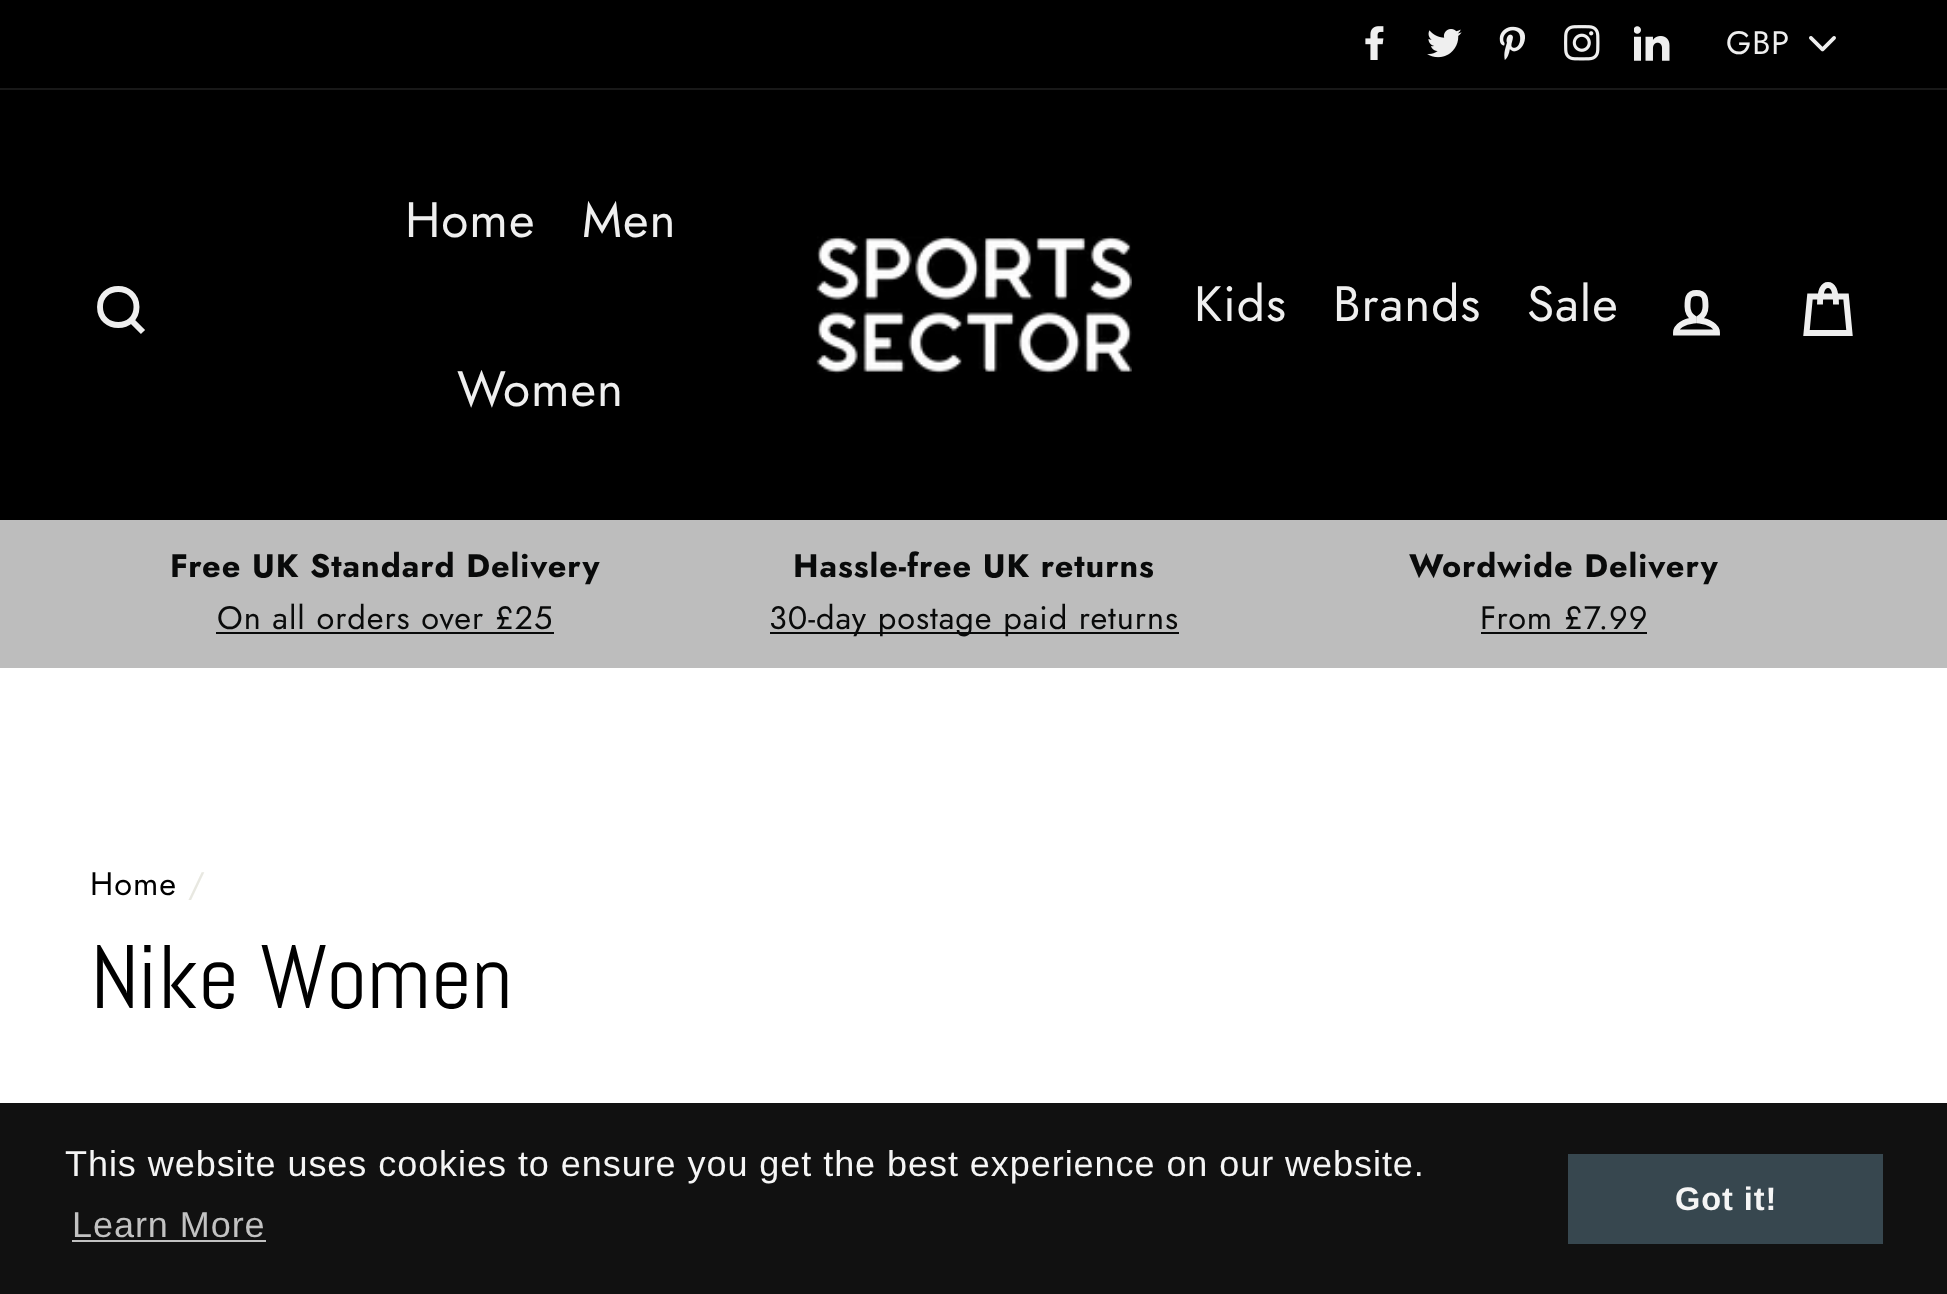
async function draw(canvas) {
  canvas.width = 1947
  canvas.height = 1294
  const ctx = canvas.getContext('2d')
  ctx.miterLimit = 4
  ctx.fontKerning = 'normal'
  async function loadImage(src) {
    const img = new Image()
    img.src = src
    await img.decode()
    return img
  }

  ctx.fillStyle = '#fff'
  ctx.fillRect(0, 0, 1947, 1294)
  ctx.fillStyle = '#000'
  ctx.fillRect(0, 0, 1947, 88)
  ctx.drawImage(await loadImage('image0.png'), 1365, 26, 19, 34)
  ctx.drawImage(await loadImage('image1.png'), 1427, 29, 35, 29)
  ctx.drawImage(await loadImage('image2.png'), 1499, 26, 26, 34)
  ctx.drawImage(await loadImage('image3.png'), 1564, 25, 36, 36)
  ctx.drawImage(await loadImage('image4.png'), 1634, 26, 36, 35)
  ctx.drawImage(await loadImage('image5.png'), 1809, 36, 27, 16)
  ctx.letterSpacing = '1px'
  ctx.font = '32.5px Jost'
  ctx.fillStyle = '#efefef'
  ctx.fillText('GBP', 1726, 54)
  ctx.fillStyle = '#000'
  ctx.fillRect(0, 90, 1947, 430)
  ctx.fillStyle = '#181818'
  ctx.fillRect(0, 88, 1947, 2)
  ctx.beginPath()
  ctx.moveTo(136.5, 307)
  ctx.bezierCurveTo(136.5, 331, 100, 331, 100, 307)
  ctx.bezierCurveTo(100, 283, 136.5, 283, 136.5, 307)
  ctx.closePath()
  ctx.moveTo(143, 332)
  ctx.lineTo(131.5, 320.5)
  ctx.strokeStyle = '#efefef'
  ctx.lineWidth = 5.9
  ctx.stroke()
  ctx.letterSpacing = '0.95px'
  ctx.font = '49.5px Jost'
  ctx.fillStyle = '#efefef'
  ctx.fillText('Home', 405, 237)
  ctx.fillText('Men', 582, 237)
  ctx.fillText('Women', 457, 406)
  ctx.drawImage(await loadImage('image6.png'), 816, 236, 316, 138)
  ctx.fillText('Kids', 1194, 321)
  ctx.fillText('Brands', 1333, 321)
  ctx.fillText('Sale', 1527, 321)
  ctx.beginPath()
  ctx.moveTo(1699.5, 320.5)
  ctx.lineTo(1699.5, 318)
  ctx.bezierCurveTo(1702.5, 316, 1705.5, 311.5, 1705.5, 306.5)
  ctx.bezierCurveTo(1705.5, 299, 1705.5, 293, 1696.5, 293)
  ctx.bezierCurveTo(1687.5, 293, 1687.5, 299, 1687.5, 306.5)
  ctx.bezierCurveTo(1687.5, 311.5, 1690.5, 316, 1693.5, 318)
  ctx.lineTo(1693.5, 320.5)
  ctx.bezierCurveTo(1683.5, 321.5, 1676, 326.5, 1676, 332.5)
  ctx.lineTo(1717, 332.5)
  ctx.bezierCurveTo(1717, 326.5, 1709.5, 321.5, 1699.5, 320.5)
  ctx.closePath()
  ctx.stroke()
  ctx.beginPath()
  ctx.moveTo(1820, 304.5)
  ctx.bezierCurveTo(1820, 289, 1823.5, 285, 1828, 285)
  ctx.bezierCurveTo(1832.5, 285, 1836, 289, 1836, 304.5)
  ctx.moveTo(1810, 296.5)
  ctx.lineTo(1846, 296.5)
  ctx.lineTo(1849.5, 333)
  ctx.lineTo(1806.5, 333)
  ctx.closePath()
  ctx.stroke()
  ctx.fillStyle = '#bdbdbd'
  ctx.fillRect(0, 520, 1947, 148)
  ctx.font = 'bold 32.5px Jost'
  ctx.fillStyle = '#090a0a'
  ctx.fillText('Free UK Standard Delivery', 170, 577)
  ctx.font = '32.5px Jost'
  ctx.fillText('On all orders over £25', 217, 629)
  ctx.fillRect(216, 632, 338, 2)
  ctx.font = 'bold 32.5px Jost'
  ctx.fillText('Hassle-free UK returns', 793, 577)
  ctx.fillRect(770, 632, 409, 2)
  ctx.font = '32.5px Jost'
  ctx.fillText('30-day postage paid returns', 769, 629)
  ctx.font = 'bold 32.5px Jost'
  ctx.fillText('Wordwide Delivery', 1409, 577)
  ctx.font = '32.5px Jost'
  ctx.fillText('From £7.99', 1480, 629)
  ctx.fillRect(1481, 632, 166, 2)
  ctx.fillStyle = '#000'
  ctx.fillText('Home', 90, 895)
  ctx.fillStyle = '#e8e8e1'
  ctx.fillText('/', 188, 895)
  ctx.letterSpacing = '0px'
  ctx.font = '90px Abel'
  ctx.fillStyle = '#000'
  ctx.fillText('Nike Women', 90, 1008)
  ctx.fillStyle = '#111'
  ctx.fillRect(0, 1103, 1947, 191)
  ctx.letterSpacing = '0.95px'
  ctx.font = '36px Liberation Sans'
  ctx.fillStyle = '#f5f5f5'
  ctx.fillText('This website uses cookies to ensure you get the best experience on our website.', 65, 1176)
  ctx.fillStyle = '#c2c2c2'
  ctx.fillText('Learn More', 72, 1237)
  ctx.fillRect(72, 1240, 194, 2)
  ctx.fillStyle = '#37474f'
  ctx.fillRect(1568, 1154, 315, 90)
  ctx.font = 'bold 32.5px Liberation Sans'
  ctx.fillStyle = '#f5f5f5'
  ctx.fillText('Got it!', 1675, 1210)
}

draw(document.querySelector('canvas'))
